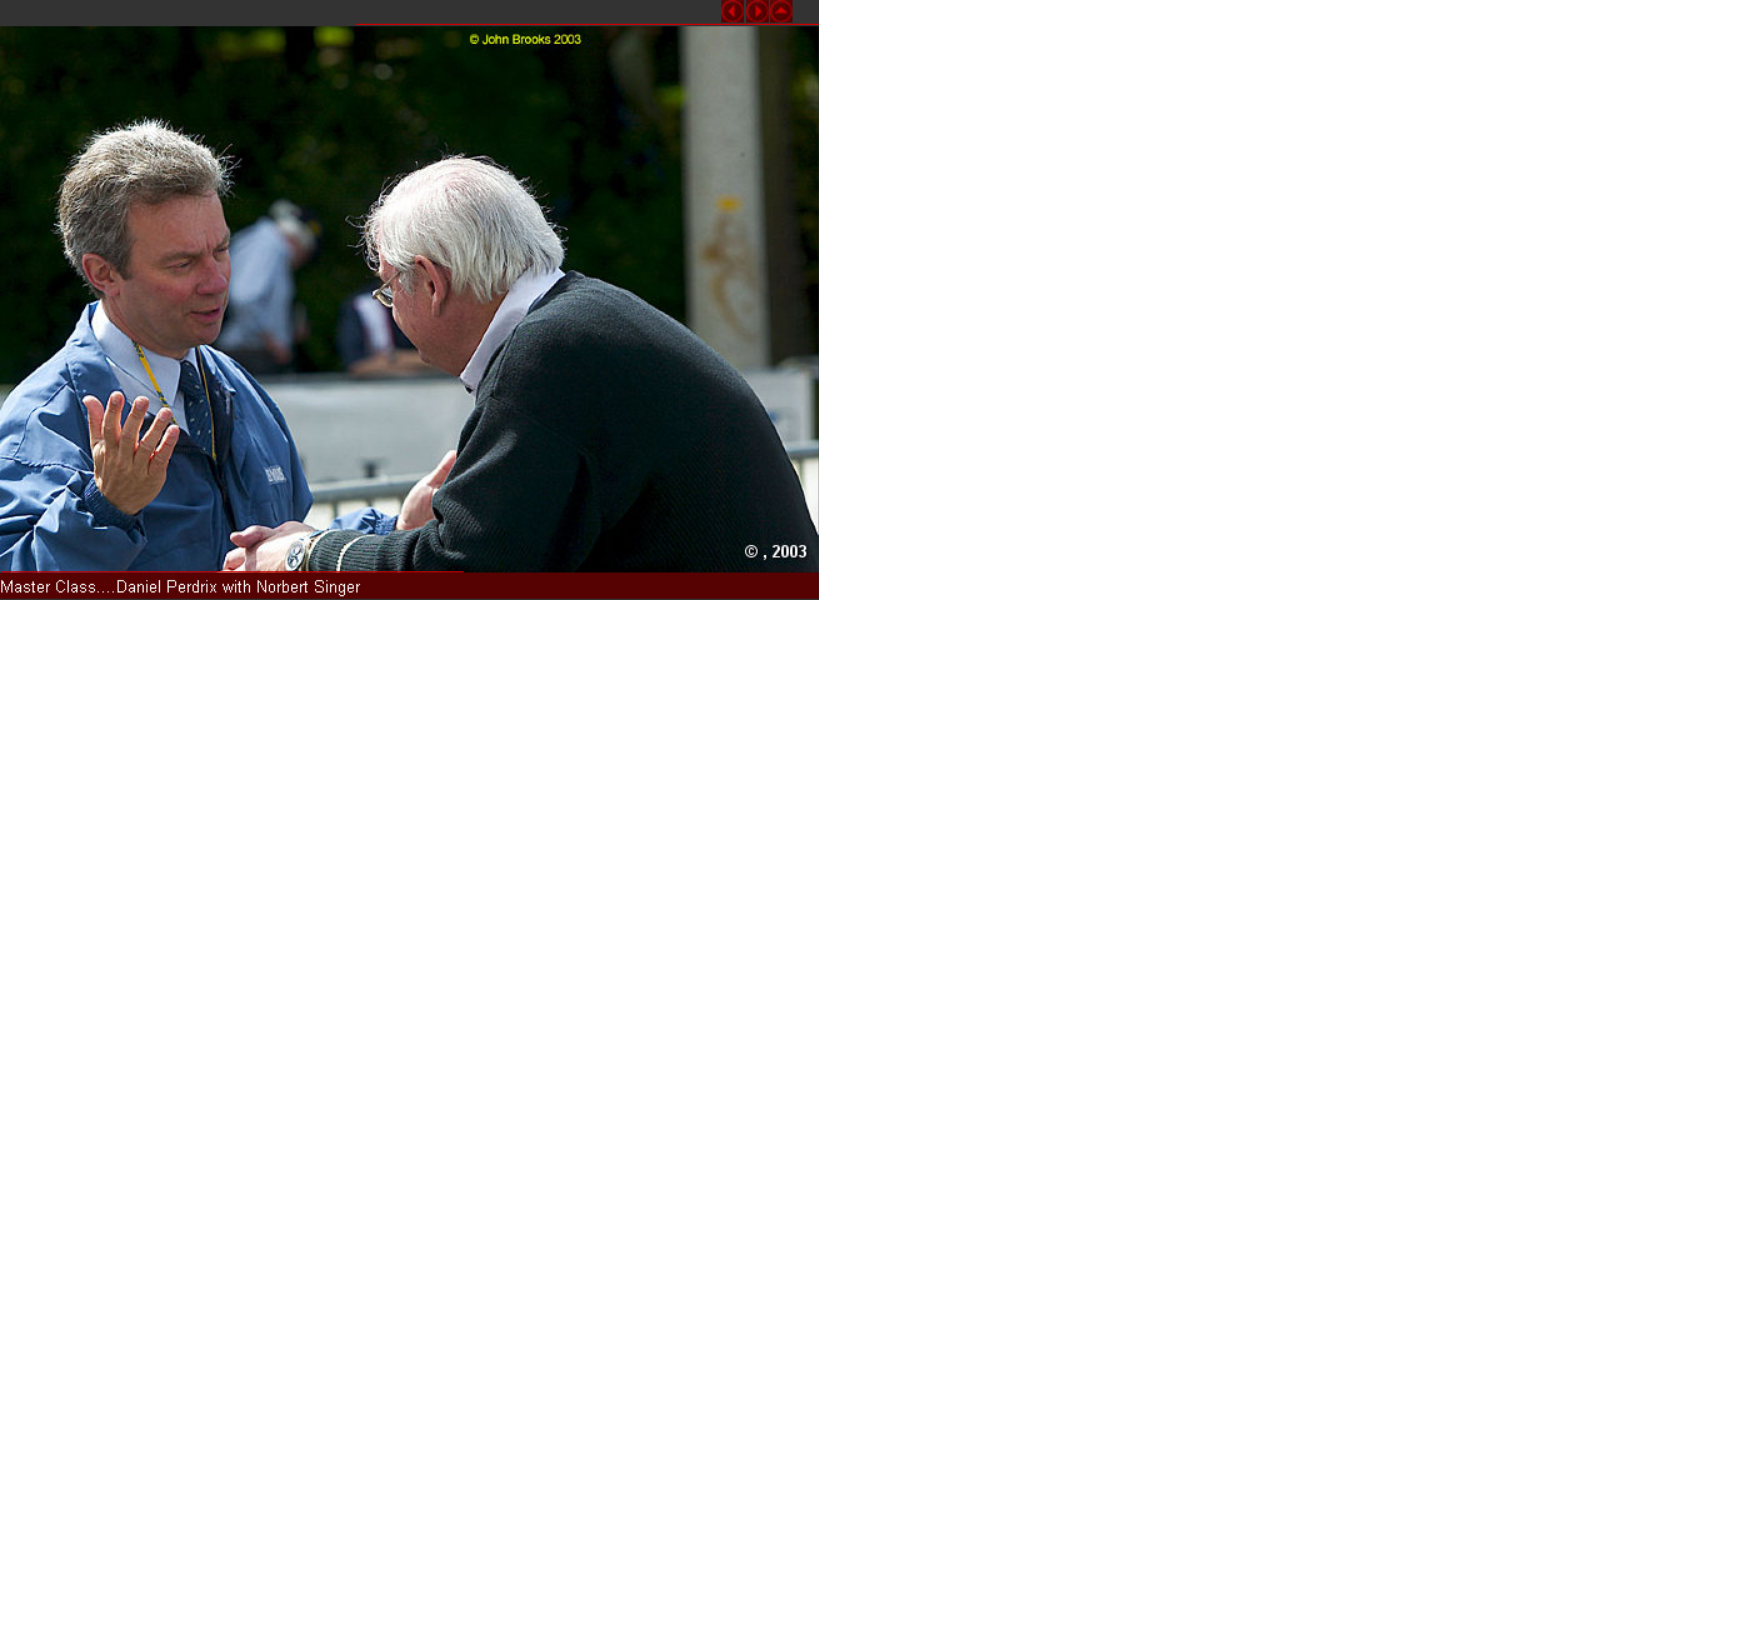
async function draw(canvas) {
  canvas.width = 1758
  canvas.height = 1643
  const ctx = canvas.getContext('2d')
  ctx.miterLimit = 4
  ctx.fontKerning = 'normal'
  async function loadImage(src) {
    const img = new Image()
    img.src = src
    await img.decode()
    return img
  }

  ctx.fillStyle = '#fff'
  ctx.fillRect(0, 0, 1758, 1643)
  ctx.fillStyle = '#333'
  ctx.fillRect(0, 0, 819, 600)
  ctx.drawImage(await loadImage('image0.png'), 721, 0, 23, 23)
  ctx.drawImage(await loadImage('image1.png'), 746, 0, 23, 23)
  ctx.drawImage(await loadImage('image2.png'), 770, 0, 23, 23)
  ctx.drawImage(await loadImage('image3.png'), 356, 23, 463, 2)
  ctx.drawImage(await loadImage('image4.png'), 0, 26, 819, 548)
  ctx.drawImage(await loadImage('image6.png'), 0, 572, 819, 27)
  ctx.drawImage(await loadImage('image5.png'), 1, 571, 463, 2)
}

draw(document.querySelector('canvas'))
